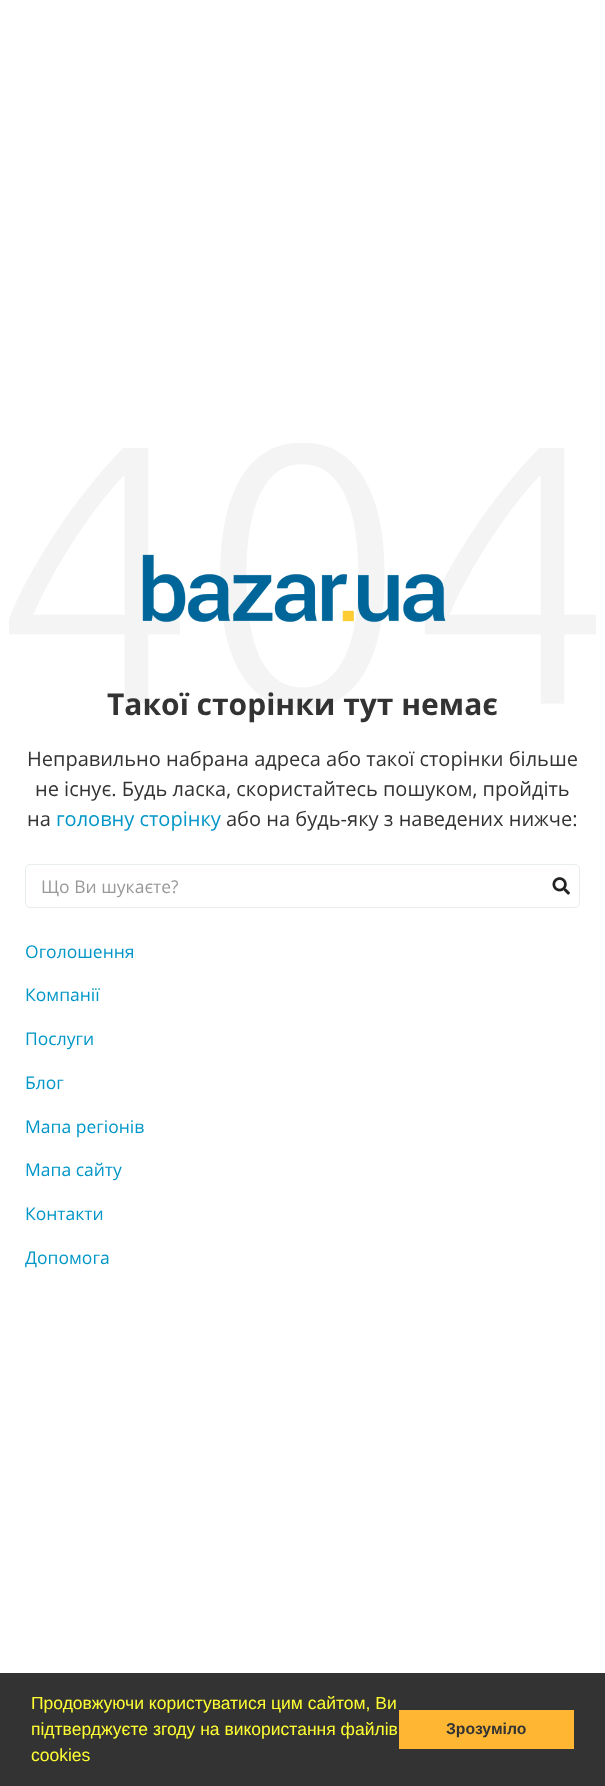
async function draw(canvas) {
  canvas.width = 605
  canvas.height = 1786
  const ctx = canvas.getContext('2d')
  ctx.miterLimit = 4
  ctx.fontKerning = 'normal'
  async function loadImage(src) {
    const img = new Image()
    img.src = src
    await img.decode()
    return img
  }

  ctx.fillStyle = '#fff'
  ctx.fillRect(0, 0, 605, 1786)
  ctx.drawImage(await loadImage('image0.png'), 9, 443, 587, 266)
  ctx.drawImage(await loadImage('image1.png'), 142, 554, 304, 69)
  ctx.font = 'bold 30px Open Sans'
  ctx.fillStyle = '#333'
  ctx.fillText('Такої сторінки тут немає', 107, 715)
  ctx.font = '20px Open Sans'
  ctx.fillText('Неправильно набрана адреса або такої сторінки більше', 27, 766)
  ctx.fillText('не існує. Будь ласка, скористайтесь пошуком, пройдіть', 35, 796)
  ctx.fillText('на', 27, 826)
  ctx.fillStyle = '#0096c7'
  ctx.fillText('головну сторінку', 56, 826)
  ctx.fillStyle = '#333'
  ctx.fillText('або на будь-яку з наведених нижче:', 226, 826)
  ctx.beginPath()
  ctx.roundRect(25.5, 864.5, 554, 43, 4.5)
  ctx.strokeStyle = '#e8edef'
  ctx.stroke()
  ctx.font = '17.5px Open Sans'
  ctx.fillStyle = '#999'
  ctx.fillText('Що Ви шукаєте?', 41, 893)
  ctx.drawImage(await loadImage('image2.png'), 552, 877, 18, 18)
  ctx.fillStyle = '#0096c7'
  ctx.fillText('Оголошення', 25, 958)
  ctx.fillText('Компанії', 25, 1001)
  ctx.fillText('Послуги', 25, 1045)
  ctx.fillText('Блог', 25, 1089)
  ctx.fillText('Мапа регіонів', 25, 1133)
  ctx.fillText('Мапа сайту', 25, 1176)
  ctx.fillText('Контакти', 25, 1220)
  ctx.fillText('Допомога', 25, 1264)
  ctx.fillStyle = '#333'
  ctx.fillRect(0, 1673, 605, 113)
  ctx.font = '17.5px Liberation Sans'
  ctx.fillStyle = '#ff3'
  ctx.fillText('Продовжуючи користуватися цим сайтом, Ви', 31, 1709)
  ctx.fillText('підтверджуєте згоду на використання файлів', 31, 1735)
  ctx.fillText('cookies', 31, 1761)
  ctx.fillStyle = '#ffb733'
  ctx.fillRect(399, 1710, 175, 39)
  ctx.font = 'bold 15.75px Liberation Sans'
  ctx.fillStyle = '#333'
  ctx.fillText('Зрозуміло', 446, 1734)
}

draw(document.querySelector('canvas'))
